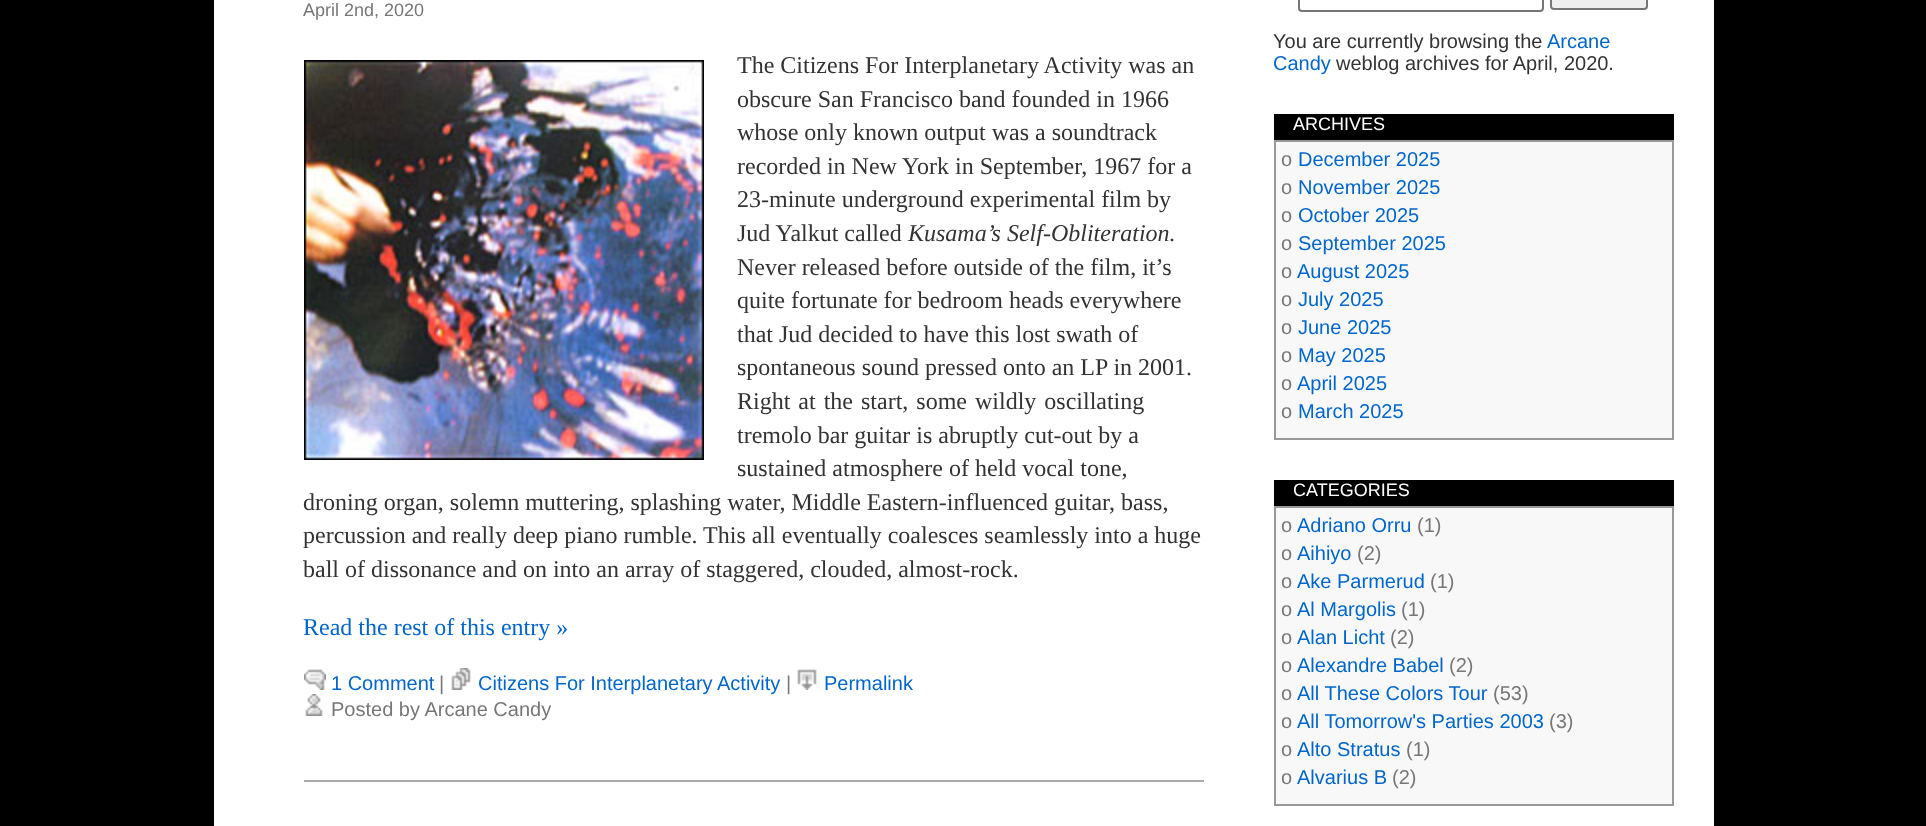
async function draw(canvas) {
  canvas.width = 1926
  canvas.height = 826
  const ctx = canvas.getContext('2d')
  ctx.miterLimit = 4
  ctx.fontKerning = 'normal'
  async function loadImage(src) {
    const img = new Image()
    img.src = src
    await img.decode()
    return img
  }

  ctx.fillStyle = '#000'
  ctx.fillRect(0, 0, 1926, 826)
  ctx.fillStyle = '#fff'
  ctx.fillRect(214, 0, 1500, 826)
  ctx.font = '18px Liberation Sans'
  ctx.fillStyle = '#777'
  ctx.fillText('April 2nd, 2020', 303, 16)
  ctx.font = '24px Liberation Serif'
  ctx.fillStyle = '#333'
  ctx.fillText('The Citizens For Interplanetary Activity was an', 737, 73)
  ctx.fillText('obscure San Francisco band founded in 1966', 737, 107)
  ctx.fillText('whose only known output was a soundtrack', 737, 140)
  ctx.fillText('recorded in New York in September, 1967 for a', 737, 174)
  ctx.fillText('23-minute underground experimental film by', 737, 207)
  ctx.fillText('Jud Yalkut called', 737, 241)
  ctx.font = 'italic 24px Liberation Serif'
  ctx.fillText('Kusama’s Self-Obliteration', 908, 241)
  ctx.font = '24px Liberation Serif'
  ctx.fillText('.', 1169, 241)
  ctx.fillText('Never released before outside of the film, it’s', 737, 275)
  ctx.fillText('quite fortunate for bedroom heads everywhere', 737, 308)
  ctx.fillText('that Jud decided to have this lost swath of', 737, 342)
  ctx.fillText('spontaneous sound pressed onto an LP in 2001.', 737, 375)
  ctx.wordSpacing = '2px'
  ctx.fillText('Right at the start, some wildly oscillating', 737, 409)
  ctx.wordSpacing = '0px'
  ctx.fillText('tremolo bar guitar is abruptly cut-out by a', 737, 443)
  ctx.fillText('sustained atmosphere of held vocal tone,', 737, 476)
  ctx.fillText('droning organ, solemn muttering, splashing water, Middle Eastern-influenced guitar, bass,', 303, 510)
  ctx.fillText('percussion and really deep piano rumble. This all eventually coalesces seamlessly into a huge', 303, 543)
  ctx.fillText('ball of dissonance and on into an array of staggered, clouded, almost-rock.', 303, 577)
  ctx.drawImage(await loadImage('image0.png'), 304, 60, 400, 400)
  ctx.fillStyle = '#06c'
  ctx.fillText('Read the rest of this entry »', 303, 635)
  ctx.drawImage(await loadImage('image1.png'), 304, 669, 22, 21)
  ctx.font = '20px Liberation Sans'
  ctx.fillText('1 Comment', 331, 690)
  ctx.fillStyle = '#777'
  ctx.fillText('|', 439, 690)
  ctx.drawImage(await loadImage('image2.png'), 451, 668, 20, 22)
  ctx.fillStyle = '#06c'
  ctx.fillText('Citizens For Interplanetary Activity', 478, 690)
  ctx.fillStyle = '#777'
  ctx.fillText('|', 786, 690)
  ctx.drawImage(await loadImage('image3.png'), 797, 669, 20, 21)
  ctx.fillStyle = '#06c'
  ctx.fillText('Permalink', 824, 690)
  ctx.drawImage(await loadImage('image4.png'), 305, 694, 18, 22)
  ctx.fillStyle = '#777'
  ctx.fillText('Posted by Arcane Candy', 331, 716)
  ctx.fillStyle = '#aaa'
  ctx.fillRect(304, 780, 900, 2)
  ctx.beginPath()
  ctx.roundRect(1299, -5, 244, 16, 3)
  ctx.strokeStyle = '#767676'
  ctx.lineWidth = 2
  ctx.stroke()
  ctx.fillStyle = '#efefef'
  ctx.beginPath()
  ctx.roundRect(1551, -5, 96, 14, 3)
  ctx.fill()
  ctx.stroke()
  ctx.fillStyle = '#333'
  ctx.fillText('You are currently browsing the', 1273, 48)
  ctx.fillStyle = '#06c'
  ctx.fillText('Arcane', 1547, 48)
  ctx.fillText('Candy', 1273, 70)
  ctx.fillStyle = '#333'
  ctx.fillText('weblog archives for April, 2020.', 1336, 70)
  ctx.fillStyle = '#000'
  ctx.fillRect(1274, 114, 400, 26)
  ctx.font = '18px Liberation Sans'
  ctx.fillStyle = '#fff'
  ctx.fillText('ARCHIVES', 1293, 130)
  ctx.fillStyle = '#f8f8f8'
  ctx.beginPath()
  ctx.rect(1275, 141, 398, 298)
  ctx.fill()
  ctx.strokeStyle = '#999'
  ctx.stroke()
  ctx.font = '20px Liberation Sans'
  ctx.fillStyle = '#777'
  ctx.fillText('o', 1281, 166)
  ctx.fillStyle = '#06c'
  ctx.fillText('December 2025', 1298, 166)
  ctx.fillStyle = '#777'
  ctx.fillText('o', 1281, 194)
  ctx.fillStyle = '#06c'
  ctx.fillText('November 2025', 1298, 194)
  ctx.fillStyle = '#777'
  ctx.fillText('o', 1281, 222)
  ctx.fillStyle = '#06c'
  ctx.fillText('October 2025', 1298, 222)
  ctx.fillStyle = '#777'
  ctx.fillText('o', 1281, 250)
  ctx.fillStyle = '#06c'
  ctx.fillText('September 2025', 1298, 250)
  ctx.fillStyle = '#777'
  ctx.fillText('o', 1281, 278)
  ctx.fillStyle = '#06c'
  ctx.fillText('August 2025', 1297, 278)
  ctx.fillStyle = '#777'
  ctx.fillText('o', 1281, 306)
  ctx.fillStyle = '#06c'
  ctx.fillText('July 2025', 1298, 306)
  ctx.fillStyle = '#777'
  ctx.fillText('o', 1281, 334)
  ctx.fillStyle = '#06c'
  ctx.fillText('June 2025', 1298, 334)
  ctx.fillStyle = '#777'
  ctx.fillText('o', 1281, 362)
  ctx.fillStyle = '#06c'
  ctx.fillText('May 2025', 1298, 362)
  ctx.fillStyle = '#777'
  ctx.fillText('o', 1281, 390)
  ctx.fillStyle = '#06c'
  ctx.fillText('April 2025', 1297, 390)
  ctx.fillStyle = '#777'
  ctx.fillText('o', 1281, 418)
  ctx.fillStyle = '#06c'
  ctx.fillText('March 2025', 1298, 418)
  ctx.fillStyle = '#000'
  ctx.fillRect(1274, 480, 400, 26)
  ctx.font = '18px Liberation Sans'
  ctx.fillStyle = '#fff'
  ctx.fillText('CATEGORIES', 1293, 496)
  ctx.fillStyle = '#f8f8f8'
  ctx.beginPath()
  ctx.rect(1275, 507, 398, 298)
  ctx.fill()
  ctx.stroke()
  ctx.font = '20px Liberation Sans'
  ctx.fillStyle = '#777'
  ctx.fillText('o', 1281, 532)
  ctx.fillStyle = '#06c'
  ctx.fillText('Adriano Orru', 1297, 532)
  ctx.fillStyle = '#777'
  ctx.fillText('(1)', 1417, 532)
  ctx.fillText('o', 1281, 560)
  ctx.fillStyle = '#06c'
  ctx.fillText('Aihiyo', 1297, 560)
  ctx.fillStyle = '#777'
  ctx.fillText('(2)', 1357, 560)
  ctx.fillText('o', 1281, 588)
  ctx.fillStyle = '#06c'
  ctx.fillText('Ake Parmerud', 1297, 588)
  ctx.fillStyle = '#777'
  ctx.fillText('(1)', 1430, 588)
  ctx.fillText('o', 1281, 616)
  ctx.fillStyle = '#06c'
  ctx.fillText('Al Margolis', 1297, 616)
  ctx.fillStyle = '#777'
  ctx.fillText('(1)', 1401, 616)
  ctx.fillText('o', 1281, 644)
  ctx.fillStyle = '#06c'
  ctx.fillText('Alan Licht', 1297, 644)
  ctx.fillStyle = '#777'
  ctx.fillText('(2)', 1390, 644)
  ctx.fillText('o', 1281, 672)
  ctx.fillStyle = '#06c'
  ctx.fillText('Alexandre Babel', 1297, 672)
  ctx.fillStyle = '#777'
  ctx.fillText('(2)', 1449, 672)
  ctx.fillText('o', 1281, 700)
  ctx.fillStyle = '#06c'
  ctx.fillText('All These Colors Tour', 1297, 700)
  ctx.fillStyle = '#777'
  ctx.fillText('(53)', 1493, 700)
  ctx.fillText('o', 1281, 728)
  ctx.fillStyle = '#06c'
  ctx.fillText('All Tomorrow\'s Parties 2003', 1297, 728)
  ctx.fillStyle = '#777'
  ctx.fillText('(3)', 1549, 728)
  ctx.fillText('o', 1281, 756)
  ctx.fillStyle = '#06c'
  ctx.fillText('Alto Stratus', 1297, 756)
  ctx.fillStyle = '#777'
  ctx.fillText('(1)', 1406, 756)
  ctx.fillText('o', 1281, 784)
  ctx.fillStyle = '#06c'
  ctx.fillText('Alvarius B', 1297, 784)
  ctx.fillStyle = '#777'
  ctx.fillText('(2)', 1392, 784)
}

draw(document.querySelector('canvas'))
